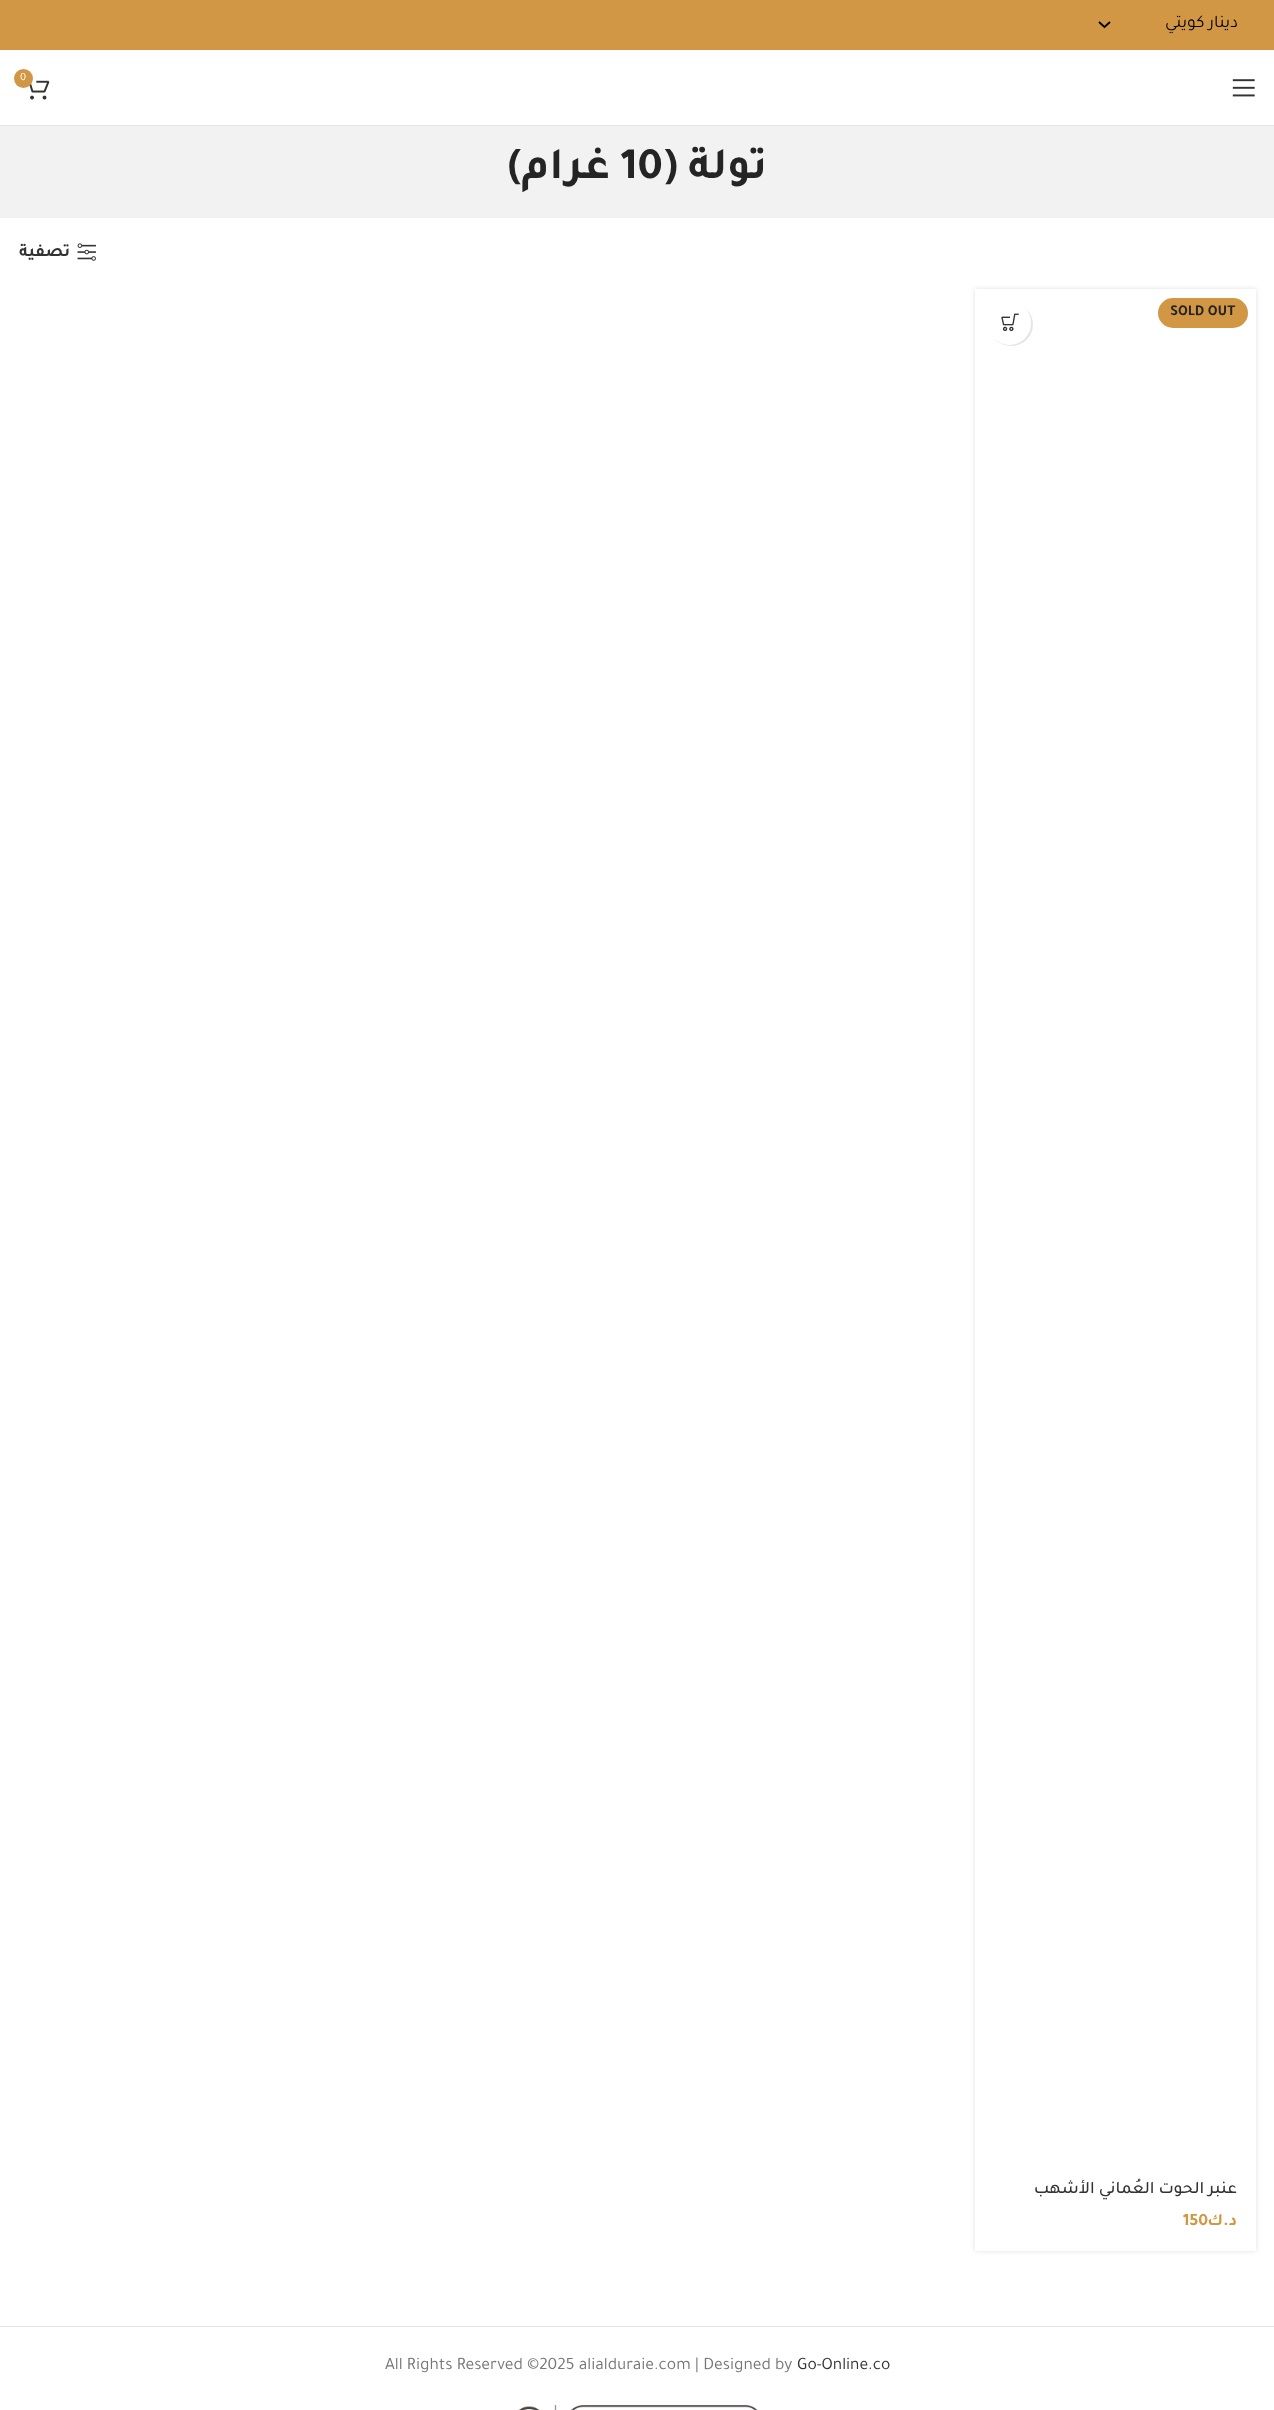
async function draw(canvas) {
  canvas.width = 1274
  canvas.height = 2410
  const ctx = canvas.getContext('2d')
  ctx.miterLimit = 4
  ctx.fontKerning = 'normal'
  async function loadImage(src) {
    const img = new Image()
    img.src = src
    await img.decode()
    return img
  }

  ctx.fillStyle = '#fff'
  ctx.fillRect(0, 0, 1274, 2410)
  ctx.fillStyle = '#d19744'
  ctx.fillRect(0, 0, 1274, 50)
  ctx.beginPath()
  ctx.moveTo(1099, 22)
  ctx.lineTo(1104.5, 27)
  ctx.lineTo(1110, 22)
  ctx.strokeStyle = '#000'
  ctx.lineWidth = 1.8
  ctx.stroke()
  ctx.direction = 'rtl'
  ctx.font = '17.5px Tajawal'
  ctx.fillStyle = '#000'
  ctx.fillText('دينار كويتي', 1238, 27)
  ctx.fillStyle = '#e6e6e6'
  ctx.fillRect(0, 125, 1274, 1)
  ctx.drawImage(await loadImage('image0.png'), 29, 80, 21, 20)
  ctx.fillStyle = '#d19744'
  ctx.beginPath()
  ctx.arc(23.5, 78.5, 9.5, 0, 2 * Math.PI)
  ctx.fill()
  ctx.direction = 'ltr'
  ctx.font = '11px Tajawal'
  ctx.fillStyle = '#fff'
  ctx.fillText('0', 20, 80)
  ctx.drawImage(await loadImage('image1.png'), 1232, 79, 23, 18)
  ctx.fillStyle = '#f2f2f2'
  ctx.fillRect(0, 126, 1274, 92)
  ctx.direction = 'rtl'
  ctx.font = 'bold 45px Tajawal'
  ctx.fillStyle = '#242424'
  ctx.fillText('غرام)', 610, 178)
  ctx.direction = 'ltr'
  ctx.fillText('10', 621, 178)
  ctx.direction = 'rtl'
  ctx.fillText('تولة (', 767, 178)
  ctx.font = 'bold 17.5px Tajawal'
  ctx.fillStyle = '#333'
  ctx.fillText('تصفية', 70, 256)
  ctx.drawImage(await loadImage('image2.png'), 77, 243, 19, 18)
  ctx.save()
  ctx.beginPath()
  ctx.moveTo(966, 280)
  ctx.lineTo(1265, 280)
  ctx.lineTo(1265, 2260)
  ctx.lineTo(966, 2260)
  ctx.closePath()
  ctx.moveTo(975, 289)
  ctx.lineTo(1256, 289)
  ctx.lineTo(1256, 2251)
  ctx.lineTo(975, 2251)
  ctx.closePath()
  ctx.clip('evenodd')
  ctx.fillStyle = '#0000001f'
  ctx.filter = 'blur(2.5px)'
  ctx.beginPath()
  ctx.rect(975, 289, 281, 1962)
  ctx.fill()
  ctx.filter = 'none'
  ctx.restore()
  ctx.fillStyle = '#0000001a'
  ctx.filter = 'blur(0.5px)'
  ctx.beginPath()
  ctx.roundRect(989, 303, 44, 43, 21.5)
  ctx.fill()
  ctx.filter = 'none'
  ctx.fillStyle = '#fff'
  ctx.beginPath()
  ctx.roundRect(988, 301, 43, 44, 21.5)
  ctx.fill()
  ctx.drawImage(await loadImage('image3.png'), 1001, 313, 18, 19)
  ctx.fillStyle = '#d19744'
  ctx.beginPath()
  ctx.roundRect(1158, 298, 90, 30, 15)
  ctx.fill()
  ctx.direction = 'ltr'
  ctx.font = 'bold 15px Tajawal'
  ctx.fillStyle = '#242424'
  ctx.fillText('SOLD OUT', 1170, 315)
  ctx.direction = 'rtl'
  ctx.font = '500 17.5px Tajawal'
  ctx.fillStyle = '#333'
  ctx.fillText('عنبر الحوت العُماني الأشهب', 1237, 2193)
  ctx.direction = 'ltr'
  ctx.font = 'bold 17.5px Tajawal'
  ctx.fillStyle = '#d19744'
  ctx.fillText('150', 1183, 2225)
  ctx.direction = 'rtl'
  ctx.fillText('د.ك', 1237, 2225)
  ctx.fillStyle = '#e4e4e4'
  ctx.fillRect(0, 2326, 1274, 1)
  ctx.direction = 'ltr'
  ctx.font = '17.5px Tajawal'
  ctx.fillStyle = '#767676'
  ctx.fillText('All Rights Reserved ©2025 alialduraie.com | Designed by', 385, 2369)
  ctx.fillStyle = '#333'
  ctx.fillText('Go-Online.co', 797, 2369)
  ctx.drawImage(await loadImage('image4.png'), 518, 2405, 240, 5)
}

draw(document.querySelector('canvas'))
